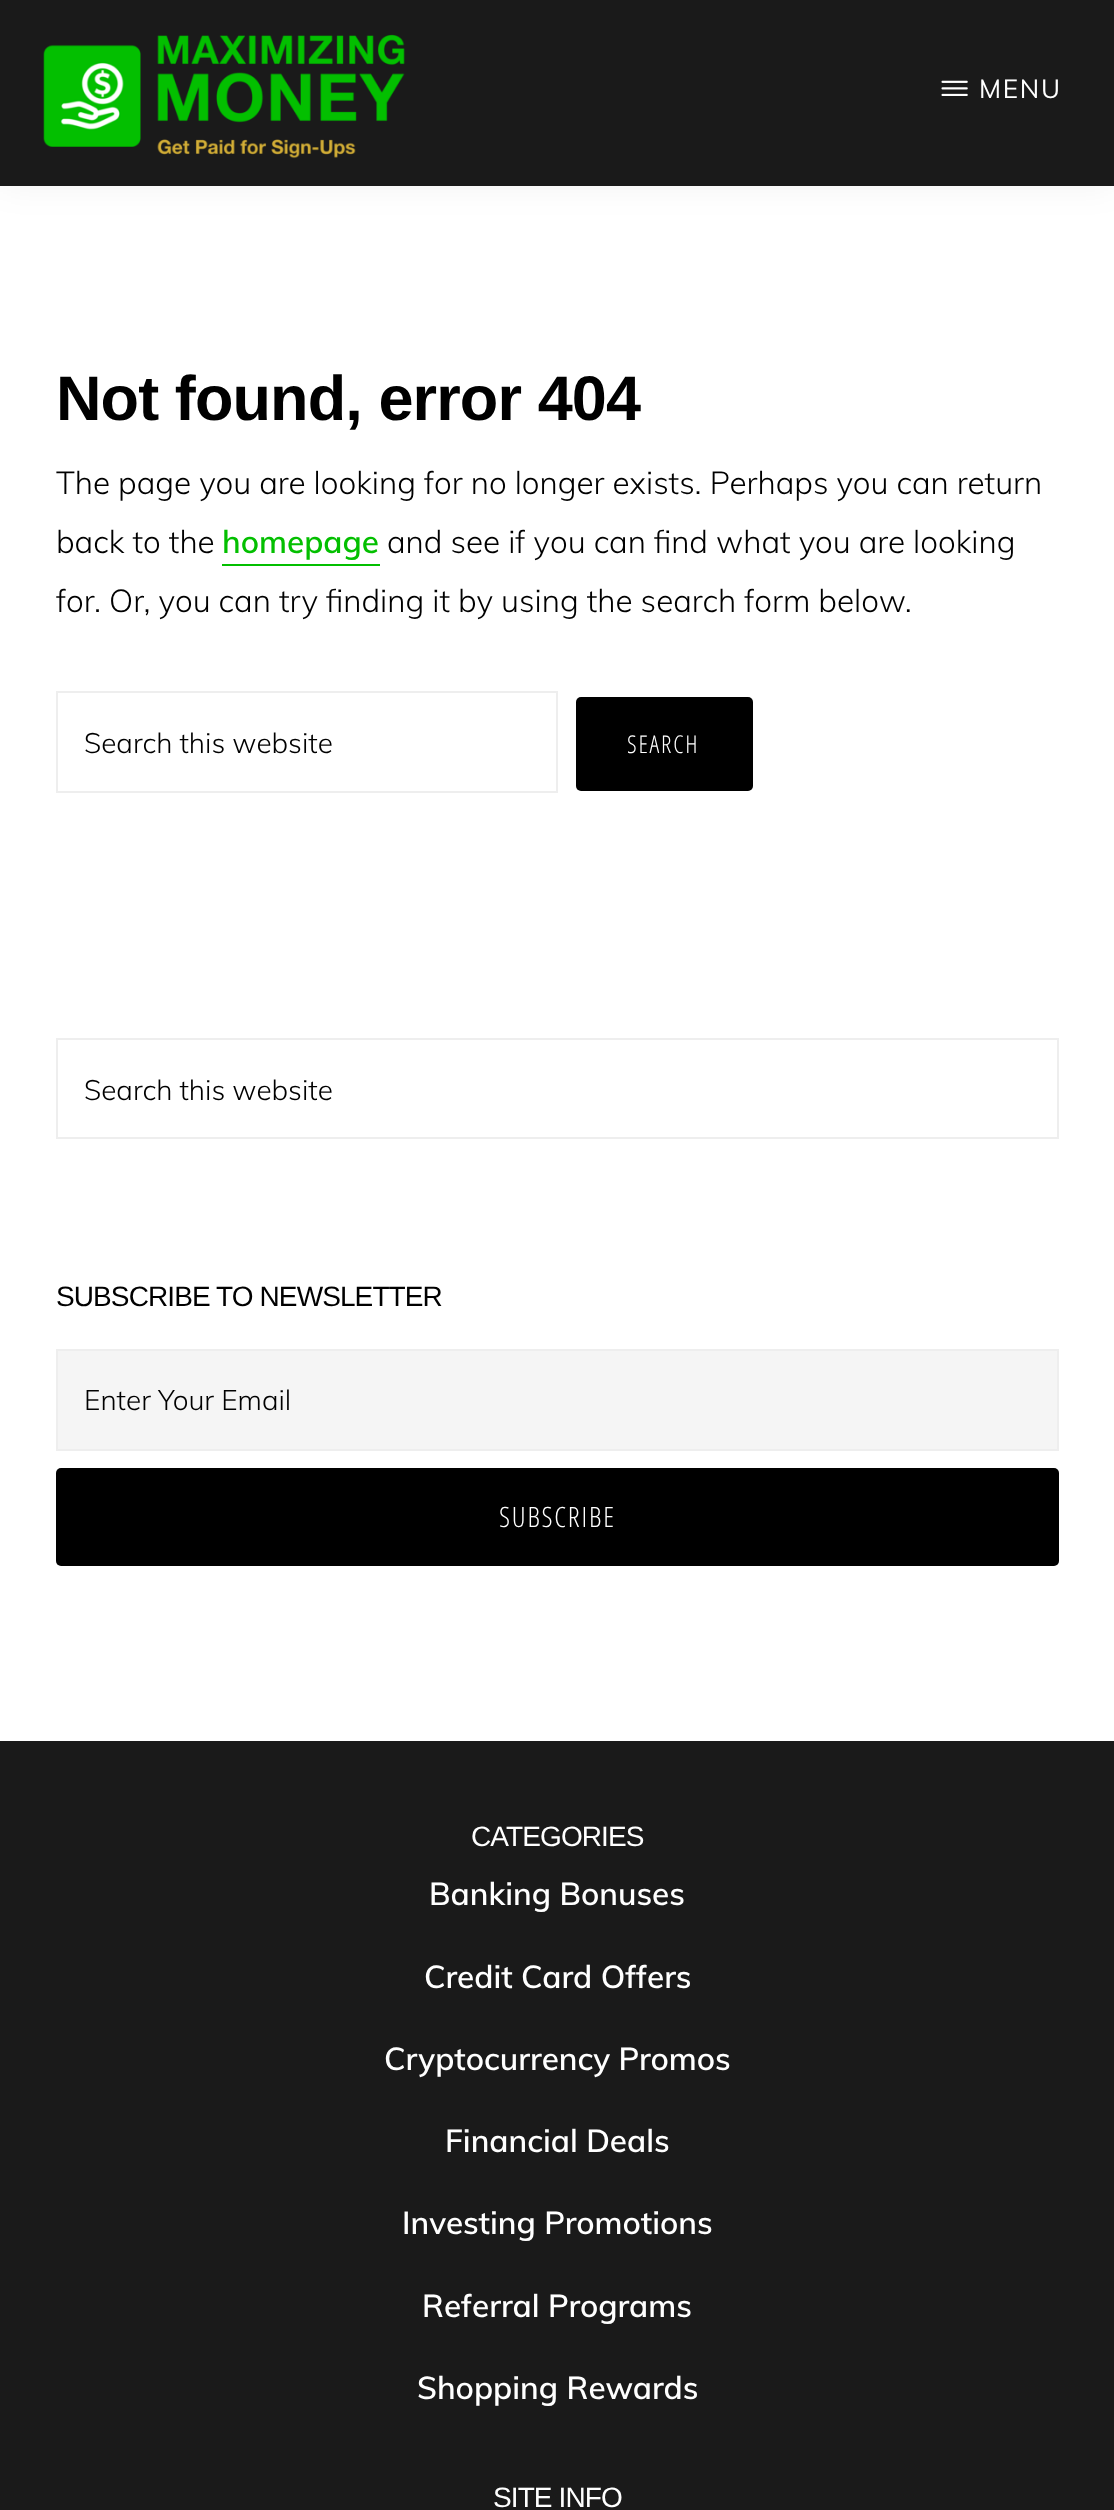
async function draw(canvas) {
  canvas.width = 1114
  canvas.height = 2510
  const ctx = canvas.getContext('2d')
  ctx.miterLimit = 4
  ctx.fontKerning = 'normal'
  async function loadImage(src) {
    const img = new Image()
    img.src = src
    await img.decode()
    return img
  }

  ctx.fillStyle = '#fff'
  ctx.fillRect(0, 0, 1114, 2510)
  ctx.fillStyle = '#0000000d'
  ctx.filter = 'blur(17.5px)'
  ctx.beginPath()
  ctx.rect(0, 0, 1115, 186)
  ctx.fill()
  ctx.filter = 'none'
  ctx.fillStyle = '#1a1a1a'
  ctx.fillRect(0, 0, 1114, 186)
  ctx.drawImage(await loadImage('image0.png'), 43, 34, 362, 125)
  ctx.drawImage(await loadImage('image1.png'), 941, 80, 27, 16)
  ctx.letterSpacing = '1.75px'
  ctx.font = '26px Muli'
  ctx.fillStyle = '#fff'
  ctx.fillText('MENU', 979, 98)
  ctx.letterSpacing = '-0.9px'
  ctx.font = 'bold 63px Liberation Sans'
  ctx.fillStyle = '#000'
  ctx.fillText('Not found, error 404', 56, 420)
  ctx.letterSpacing = '0px'
  ctx.font = '300 31.5px Muli'
  ctx.fillText('The page you are looking for no longer exists. Perhaps you can return', 56, 494)
  ctx.fillText('back to the', 56, 553)
  ctx.font = '600 31.5px Muli'
  ctx.fillStyle = '#03bf00'
  ctx.fillText('homepage', 222, 553)
  ctx.fillRect(222, 564, 158, 2)
  ctx.font = '300 31.5px Muli'
  ctx.fillStyle = '#000'
  ctx.fillText('and see if you can find what you are looking', 387, 553)
  ctx.fillText('for. Or, you can try finding it by using the search form below.', 56, 612)
  ctx.strokeStyle = '#eee'
  ctx.lineWidth = 2
  ctx.strokeRect(57, 692, 500, 100)
  ctx.font = '300 28px Muli'
  ctx.fillText('Search this website', 84, 753)
  ctx.beginPath()
  ctx.roundRect(576, 697, 177, 94, 5)
  ctx.fill()
  ctx.letterSpacing = '1.75px'
  ctx.font = '300 24.5px Open Sans Condensed'
  ctx.fillStyle = '#fff'
  ctx.fillText('SEARCH', 627, 753)
  ctx.strokeRect(57, 1039, 1001, 99)
  ctx.letterSpacing = '0px'
  ctx.font = '300 28px Muli'
  ctx.fillStyle = '#000'
  ctx.fillText('Search this website', 84, 1100)
  ctx.letterSpacing = '-0.9px'
  ctx.font = '28px Liberation Sans'
  ctx.fillText('SUBSCRIBE TO NEWSLETTER', 56, 1306)
  ctx.fillStyle = '#f5f5f5'
  ctx.beginPath()
  ctx.rect(57, 1350, 1001, 100)
  ctx.fill()
  ctx.stroke()
  ctx.letterSpacing = '0px'
  ctx.font = '300 28px Muli'
  ctx.fillStyle = '#000'
  ctx.fillText('Enter Your Email', 84, 1410)
  ctx.beginPath()
  ctx.roundRect(56, 1468, 1003, 98, 5)
  ctx.fill()
  ctx.letterSpacing = '1.75px'
  ctx.font = '300 28px Open Sans Condensed'
  ctx.fillStyle = '#fff'
  ctx.fillText('SUBSCRIBE', 499, 1527)
  ctx.fillStyle = '#1a1a1a'
  ctx.fillRect(0, 1741, 1114, 769)
  ctx.letterSpacing = '-0.9px'
  ctx.font = '28px Liberation Sans'
  ctx.fillStyle = '#fff'
  ctx.fillText('CATEGORIES', 471, 1846)
  ctx.letterSpacing = '0px'
  ctx.font = '600 31.5px Muli'
  ctx.fillText('Banking Bonuses', 429, 1905)
  ctx.fillText('Credit Card Offers', 424, 1988)
  ctx.fillText('Cryptocurrency Promos', 384, 2070)
  ctx.fillText('Financial Deals', 445, 2152)
  ctx.fillText('Investing Promotions', 402, 2234)
  ctx.fillText('Referral Programs', 422, 2317)
  ctx.fillText('Shopping Rewards', 417, 2399)
  ctx.letterSpacing = '-0.9px'
  ctx.font = '28px Liberation Sans'
  ctx.fillText('SITE INFO', 493, 2507)
}

draw(document.querySelector('canvas'))
